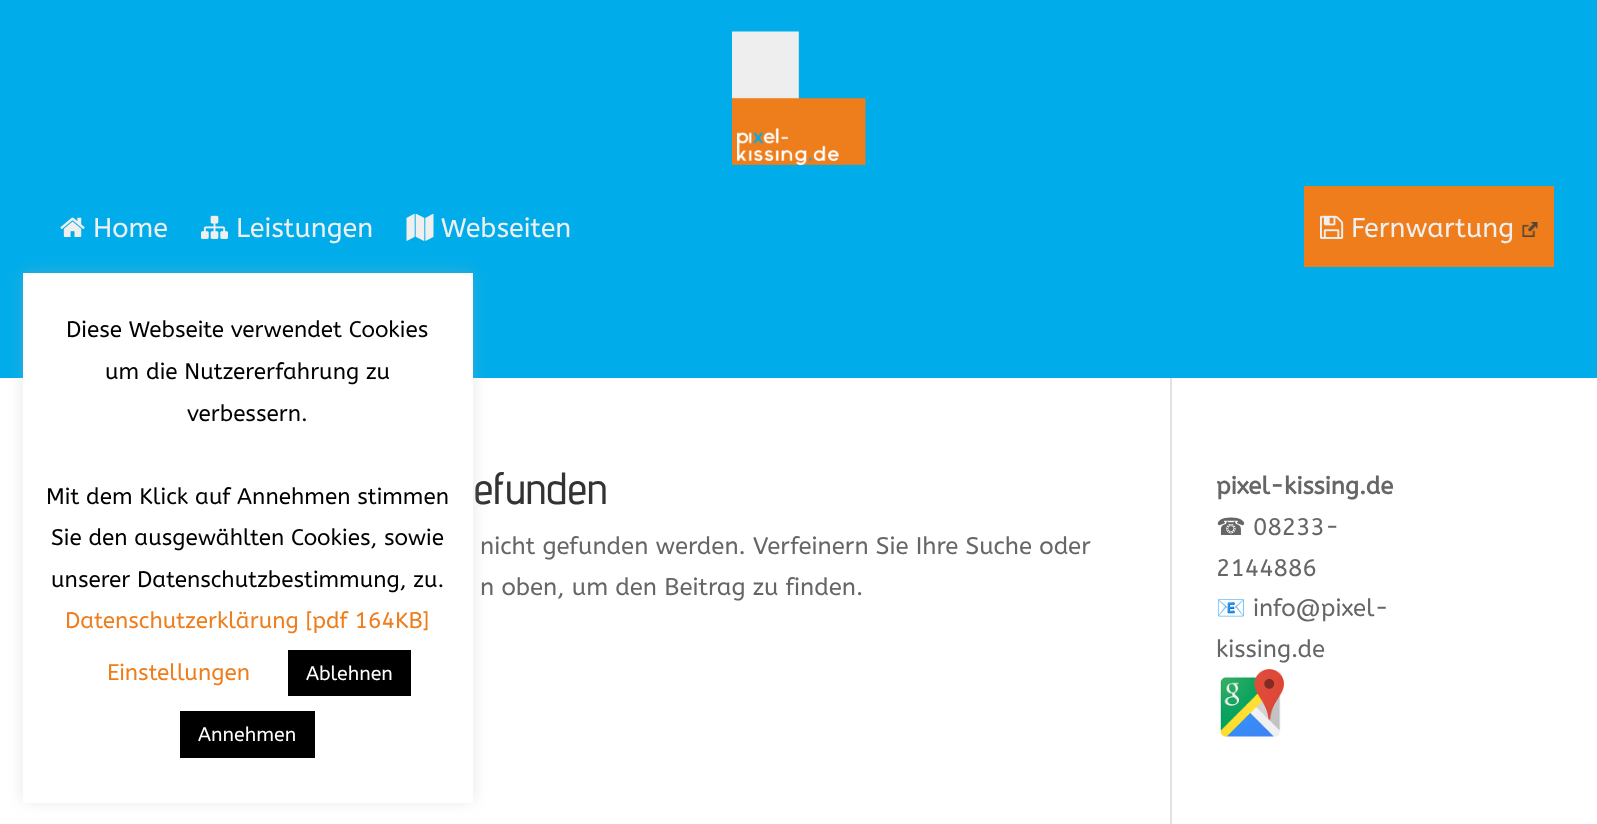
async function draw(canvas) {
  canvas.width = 1597
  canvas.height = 824
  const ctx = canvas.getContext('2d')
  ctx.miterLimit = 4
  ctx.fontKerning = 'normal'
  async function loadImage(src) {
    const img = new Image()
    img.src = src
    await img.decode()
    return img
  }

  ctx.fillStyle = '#fff'
  ctx.fillRect(0, 0, 1597, 824)
  ctx.fillStyle = '#00adea'
  ctx.fillRect(0, 0, 1597, 378)
  ctx.drawImage(await loadImage('image0.png'), 732, 31, 134, 134)
  ctx.drawImage(await loadImage('image1.png'), 60, 217, 25, 20)
  ctx.font = '27px ABeeZee'
  ctx.fillStyle = '#efefef'
  ctx.fillText('Home', 93, 237)
  ctx.drawImage(await loadImage('image2.png'), 201, 215, 27, 24)
  ctx.fillText('Leistungen', 236, 237)
  ctx.drawImage(await loadImage('image3.png'), 406, 213, 28, 28)
  ctx.fillText('Webseiten', 441, 237)
  ctx.fillStyle = '#ef7d1b'
  ctx.fillRect(1304, 186, 250, 81)
  ctx.drawImage(await loadImage('image4.png'), 1320, 215, 24, 24)
  ctx.fillStyle = '#efefef'
  ctx.fillText('Fernwartung', 1351, 237)
  ctx.drawImage(await loadImage('image5.png'), 1522, 222, 16, 15)
  ctx.fillStyle = '#e2e2e2'
  ctx.fillRect(1170, 378, 2, 446)
  ctx.font = '500 45px Advent Pro'
  ctx.fillStyle = '#333'
  ctx.fillText('efunden', 474, 504)
  ctx.font = '24px ABeeZee'
  ctx.fillStyle = '#666'
  ctx.fillText('nicht gefunden werden. Verfeinern Sie Ihre Suche oder', 480, 554)
  ctx.fillText('n oben, um den Beitrag zu finden.', 480, 595)
  ctx.font = 'bold 24px ABeeZee'
  ctx.fillText('pixel-kissing.de', 1216, 494)
  ctx.font = '24px DejaVu Sans'
  ctx.fillText('☎', 1216, 535)
  ctx.font = '24px ABeeZee'
  ctx.fillText('08233-', 1253, 535)
  ctx.fillText('2144886', 1216, 576)
  ctx.font = '24px Noto Color Emoji'
  ctx.fillText('📧', 1216, 616)
  ctx.font = '24px ABeeZee'
  ctx.fillText('info@pixel-', 1253, 616)
  ctx.fillText('kissing.de', 1216, 657)
  ctx.drawImage(await loadImage('image6.png'), 1220, 669, 64, 68)
  ctx.fillStyle = '#acabab4d'
  ctx.filter = 'blur(7.5px)'
  ctx.beginPath()
  ctx.rect(23, 272, 450, 529)
  ctx.fill()
  ctx.filter = 'none'
  ctx.fillStyle = '#fff'
  ctx.fillRect(23, 273, 450, 530)
  ctx.font = '22.5px ABeeZee'
  ctx.fillStyle = '#000'
  ctx.fillText('Diese Webseite verwendet Cookies', 66, 337)
  ctx.fillText('um die Nutzererfahrung zu', 105, 379)
  ctx.fillText('verbessern.', 187, 421)
  ctx.fillText('Mit dem Klick auf Annehmen stimmen', 46, 504)
  ctx.fillText('Sie den ausgewählten Cookies, sowie', 51, 545)
  ctx.fillText('unserer Datenschutzbestimmung, zu.', 51, 587)
  ctx.fillStyle = '#ef7d1b'
  ctx.fillText('Datenschutzerklärung [pdf 164KB]', 65, 628)
  ctx.fillText('Einstellungen', 107, 680)
  ctx.fillStyle = '#000'
  ctx.fillRect(288, 650, 123, 46)
  ctx.font = '19.5px ABeeZee'
  ctx.fillStyle = '#fff'
  ctx.fillText('Ablehnen', 306, 680)
  ctx.fillStyle = '#000'
  ctx.fillRect(180, 711, 135, 47)
  ctx.fillStyle = '#fff'
  ctx.fillText('Annehmen', 198, 741)
}

draw(document.querySelector('canvas'))
